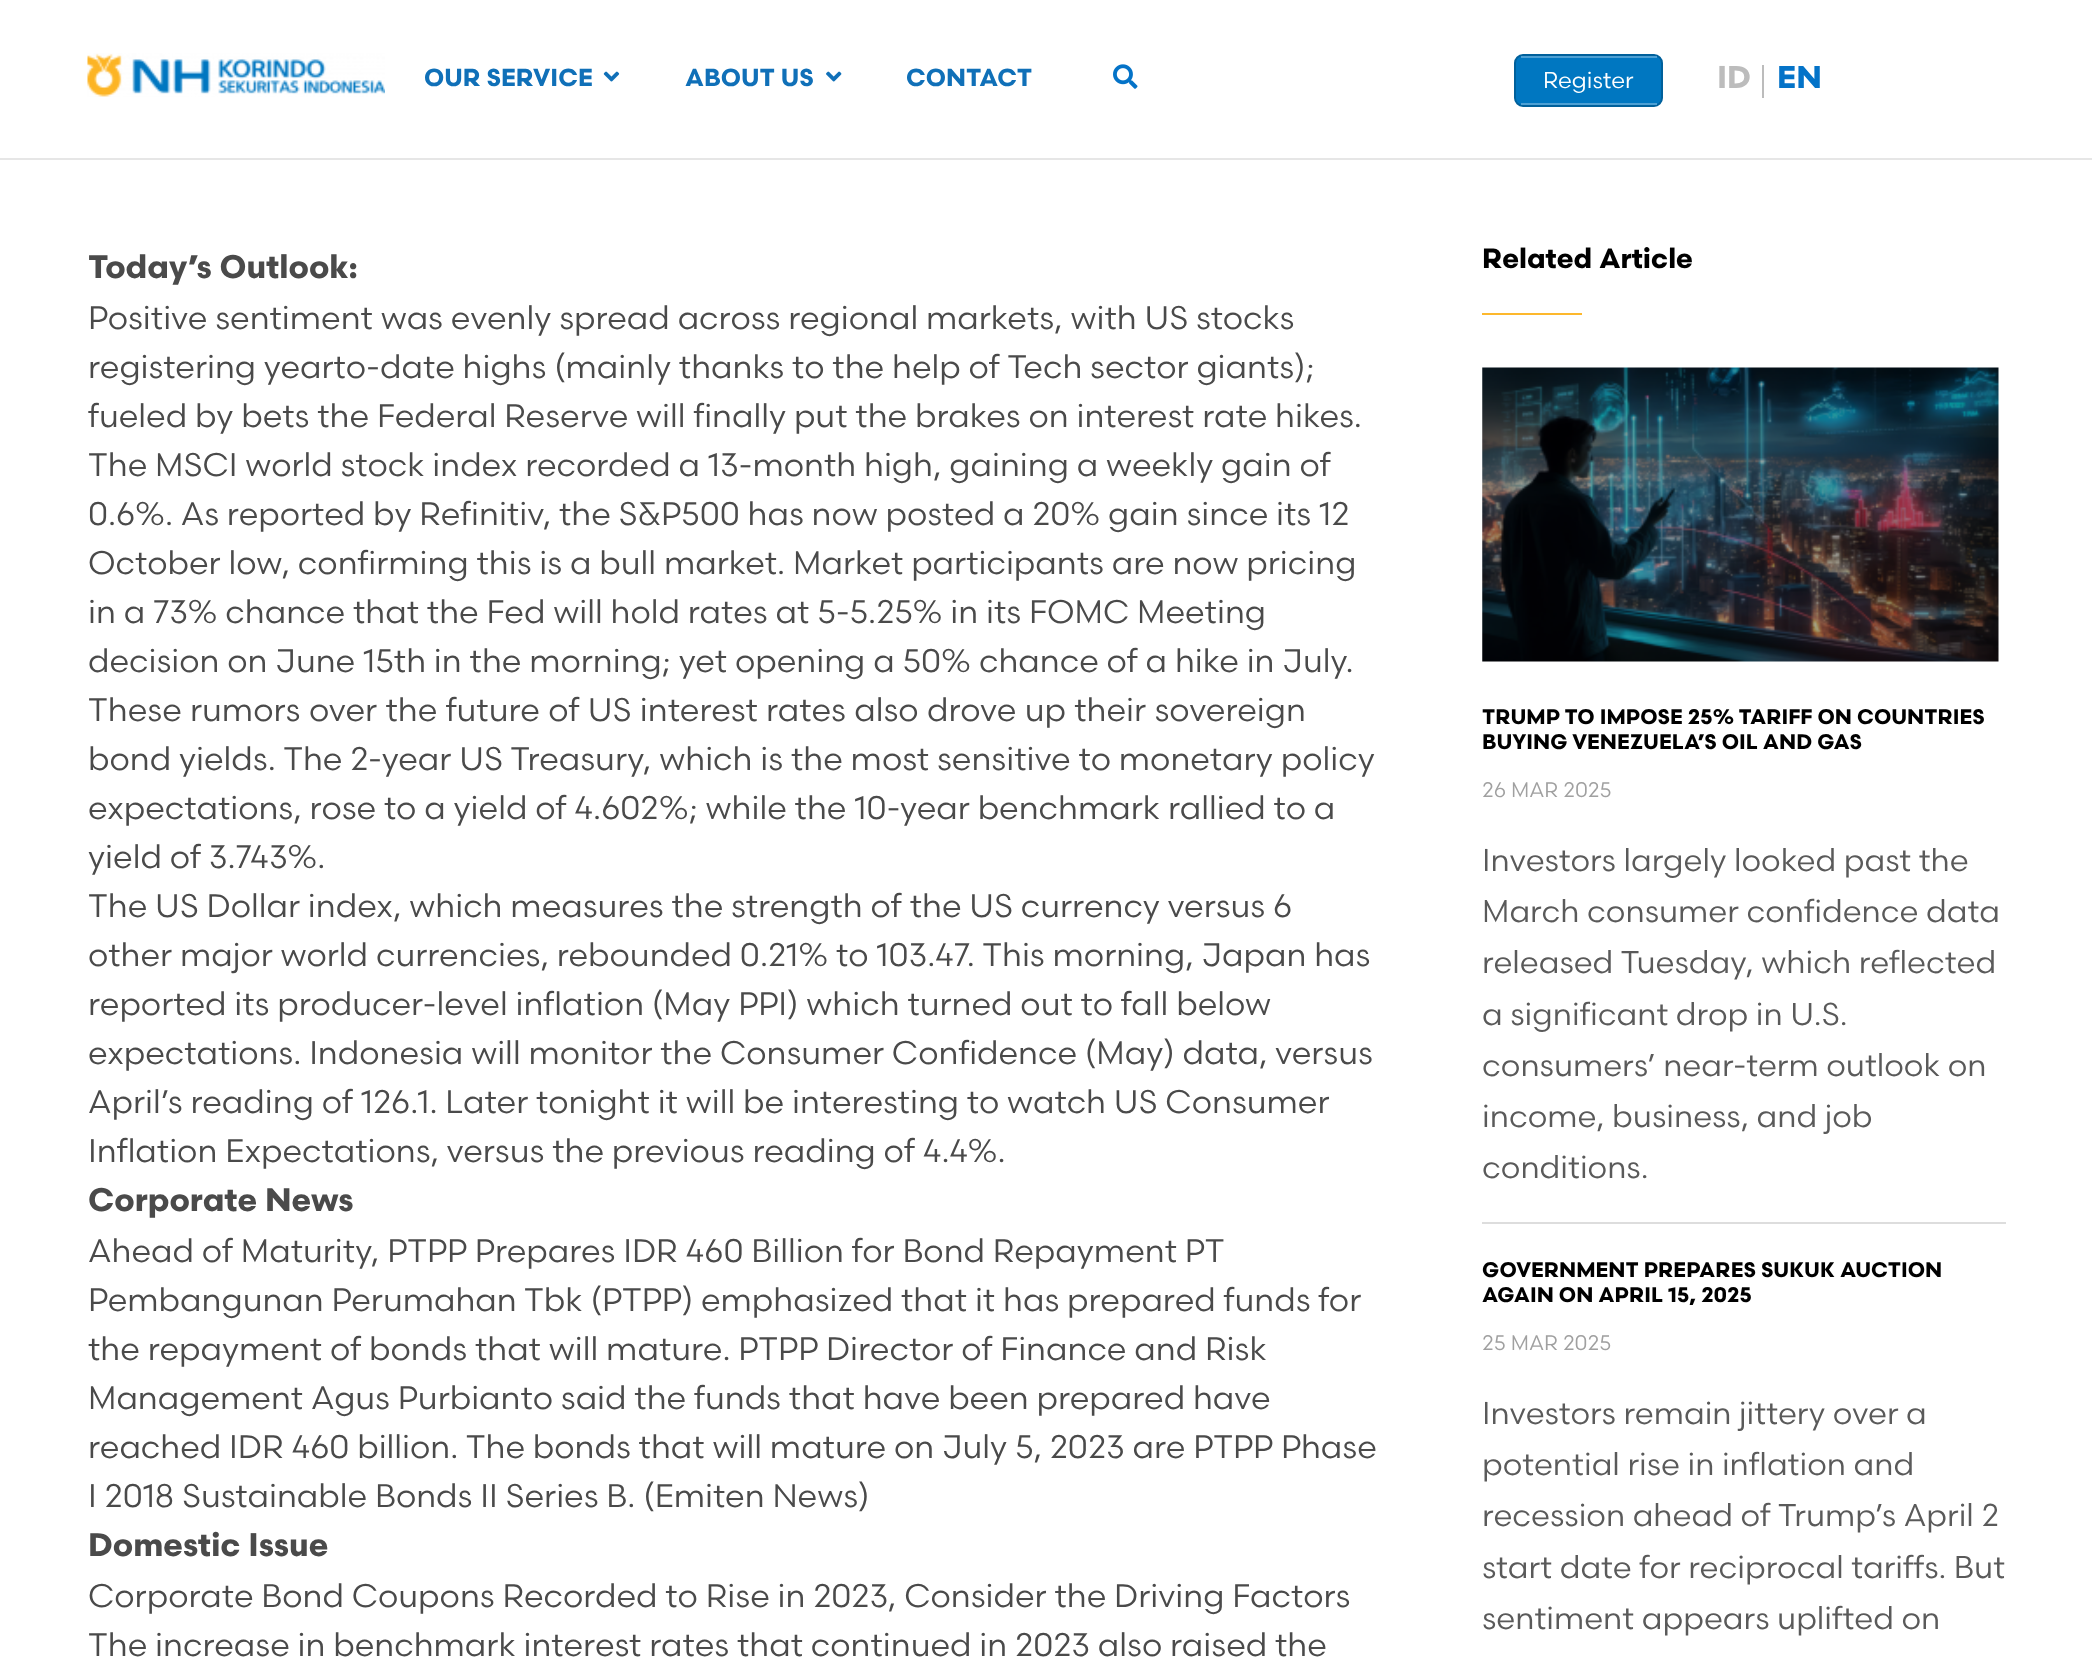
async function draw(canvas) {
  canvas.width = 2092
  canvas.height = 1665
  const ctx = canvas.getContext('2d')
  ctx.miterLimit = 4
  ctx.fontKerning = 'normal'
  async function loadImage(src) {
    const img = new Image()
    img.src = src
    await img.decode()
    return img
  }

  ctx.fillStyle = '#fff'
  ctx.fillRect(0, 0, 2092, 1665)
  ctx.fillStyle = '#e6e6e6'
  ctx.fillRect(0, 158, 2092, 2)
  ctx.drawImage(await loadImage('image0.png'), 87, 53, 298, 44)
  ctx.font = 'bold 24.5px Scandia'
  ctx.fillStyle = '#1070b8'
  ctx.fillText('OUR SERVICE', 424, 86)
  ctx.drawImage(await loadImage('image1.png'), 603, 71, 17, 11)
  ctx.fillText('ABOUT US', 685, 86)
  ctx.drawImage(await loadImage('image2.png'), 826, 71, 16, 11)
  ctx.fillText('CONTACT', 906, 86)
  ctx.drawImage(await loadImage('image3.png'), 1113, 64, 25, 25)
  ctx.fillStyle = '#0077c1'
  ctx.beginPath()
  ctx.roundRect(1515, 55, 147, 51, 8)
  ctx.fill()
  ctx.strokeStyle = '#00609b'
  ctx.lineWidth = 2
  ctx.stroke()
  ctx.fillStyle = '#4da0d4'
  ctx.fillRect(1521, 56, 136, 2)
  ctx.fillRect(1521, 103, 136, 2)
  ctx.font = '23px Scandia'
  ctx.fillStyle = '#fff'
  ctx.fillText('Register', 1543, 88)
  ctx.fillStyle = '#bcbcbc'
  ctx.fillRect(1762, 65, 2, 33)
  ctx.font = 'bold 31.5px Scandia'
  ctx.fillText('ID', 1717, 88)
  ctx.fillStyle = '#0473c8'
  ctx.fillText('EN', 1777, 88)
  ctx.font = 'bold 32.65px Scandia'
  ctx.fillStyle = '#4a4a4a'
  ctx.fillText('Today’s Outlook:', 88, 278)
  ctx.font = '32.65px Scandia'
  ctx.fillText('Positive sentiment was evenly spread across regional markets, with US stocks', 88, 329)
  ctx.fillText('registering yearto-date highs (mainly thanks to the help of Tech sector giants);', 88, 378)
  ctx.fillText('fueled by bets the Federal Reserve will finally put the brakes on interest rate hikes.', 88, 427)
  ctx.fillText('The MSCI world stock index recorded a 13-month high, gaining a weekly gain of', 88, 476)
  ctx.fillText('0.6%. As reported by Refinitiv, the S&P500 has now posted a 20% gain since its 12', 88, 525)
  ctx.fillText('October low, confirming this is a bull market. Market participants are now pricing', 88, 574)
  ctx.fillText('in a 73% chance that the Fed will hold rates at 5-5.25% in its FOMC Meeting', 88, 623)
  ctx.fillText('decision on June 15th in the morning; yet opening a 50% chance of a hike in July.', 88, 672)
  ctx.wordSpacing = '0.5px'
  ctx.fillText('These rumors', 88, 721)
  ctx.fillText('over the future of US interest rates also drove up their sovereign', 309, 721)
  ctx.wordSpacing = '0px'
  ctx.fillText('bond yields. The 2-year US Treasury, which is the most sensitive to monetary policy', 88, 770)
  ctx.fillText('expectations, rose to a yield of 4.602%; while the 10-year benchmark rallied to a', 88, 819)
  ctx.fillText('yield of 3.743%.', 88, 868)
  ctx.fillText('The US Dollar index, which measures the strength of the US currency versus 6', 88, 917)
  ctx.fillText('other major world currencies, rebounded 0.21% to 103.47. This morning, Japan has', 88, 966)
  ctx.fillText('reported its producer-level inflation (May PPI) which turned out to fall below', 88, 1015)
  ctx.fillText('expectations. Indonesia will monitor the Consumer Confidence (May) data, versus', 88, 1064)
  ctx.fillText('April’s reading of 126.1. Later tonight it will be interesting to watch US Consumer', 88, 1113)
  ctx.fillText('Inflation Expectations, versus the previous reading of 4.4%.', 88, 1162)
  ctx.font = 'bold 32.65px Scandia'
  ctx.fillText('Corporate News', 88, 1211)
  ctx.font = '32.65px Scandia'
  ctx.fillText('Ahead of Maturity, PTPP Prepares IDR 460 Billion for Bond Repayment PT', 88, 1262)
  ctx.fillText('Pembangunan Perumahan Tbk (PTPP) emphasized that it has prepared funds for', 88, 1311)
  ctx.fillText('the repayment of bonds that will mature. PTPP Director of Finance and Risk', 88, 1360)
  ctx.fillText('Management Agus Purbianto said the funds that have been prepared have', 88, 1409)
  ctx.fillText('reached IDR 460 billion. The bonds that will mature on July 5, 2023 are PTPP Phase', 88, 1458)
  ctx.fillText('I 2018 Sustainable Bonds II Series B. (Emiten News)', 88, 1507)
  ctx.font = 'bold 32.65px Scandia'
  ctx.fillText('Domestic Issue', 88, 1556)
  ctx.font = '32.65px Scandia'
  ctx.fillText('Corporate Bond Coupons Recorded to Rise in 2023, Consider the Driving Factors', 88, 1607)
  ctx.fillText('The increase in benchmark interest rates that continued in 2023 also raised the', 88, 1656)
  ctx.font = 'bold 28px Scandia'
  ctx.fillStyle = '#000'
  ctx.fillText('Related Article', 1482, 268)
  ctx.fillStyle = '#fdb82d'
  ctx.fillRect(1482, 313, 100, 2)
  ctx.fillStyle = '#ddd'
  ctx.fillRect(1482, 1222, 524, 2)
  ctx.drawImage(await loadImage('image4.png'), 1482, 367, 517, 295)
  ctx.font = 'bold 21px Scandia'
  ctx.fillStyle = '#000'
  ctx.fillText('TRUMP TO IMPOSE 25% TARIFF ON COUNTRIES', 1482, 724)
  ctx.fillText('BUYING VENEZUELA’S OIL AND GAS', 1482, 749)
  ctx.font = '21px Scandia'
  ctx.fillStyle = '#a0a0a0'
  ctx.fillText('26 MAR 2025', 1482, 797)
  ctx.font = '31.5px Scandia'
  ctx.fillStyle = '#5a5a5a'
  ctx.fillText('Investors largely looked past the', 1482, 871)
  ctx.fillText('March consumer confidence data', 1482, 922)
  ctx.fillText('released Tuesday, which reflected', 1482, 973)
  ctx.fillText('a significant drop in U.S.', 1482, 1025)
  ctx.fillText('consumers’ near-term outlook on', 1482, 1076)
  ctx.fillText('income, business, and job', 1482, 1127)
  ctx.fillText('conditions.', 1482, 1178)
  ctx.font = 'bold 21px Scandia'
  ctx.fillStyle = '#000'
  ctx.fillText('GOVERNMENT PREPARES SUKUK AUCTION', 1482, 1277)
  ctx.fillText('AGAIN ON APRIL 15, 2025', 1482, 1302)
  ctx.font = '21px Scandia'
  ctx.fillStyle = '#a0a0a0'
  ctx.fillText('25 MAR 2025', 1482, 1350)
  ctx.font = '31.5px Scandia'
  ctx.fillStyle = '#5a5a5a'
  ctx.fillText('Investors remain jittery over a', 1482, 1424)
  ctx.fillText('potential rise in inflation and', 1482, 1475)
  ctx.fillText('recession ahead of Trump’s April 2', 1482, 1526)
  ctx.fillText('start date for reciprocal tariffs. But', 1482, 1578)
  ctx.fillText('sentiment appears uplifted on', 1482, 1629)
}

draw(document.querySelector('canvas'))
